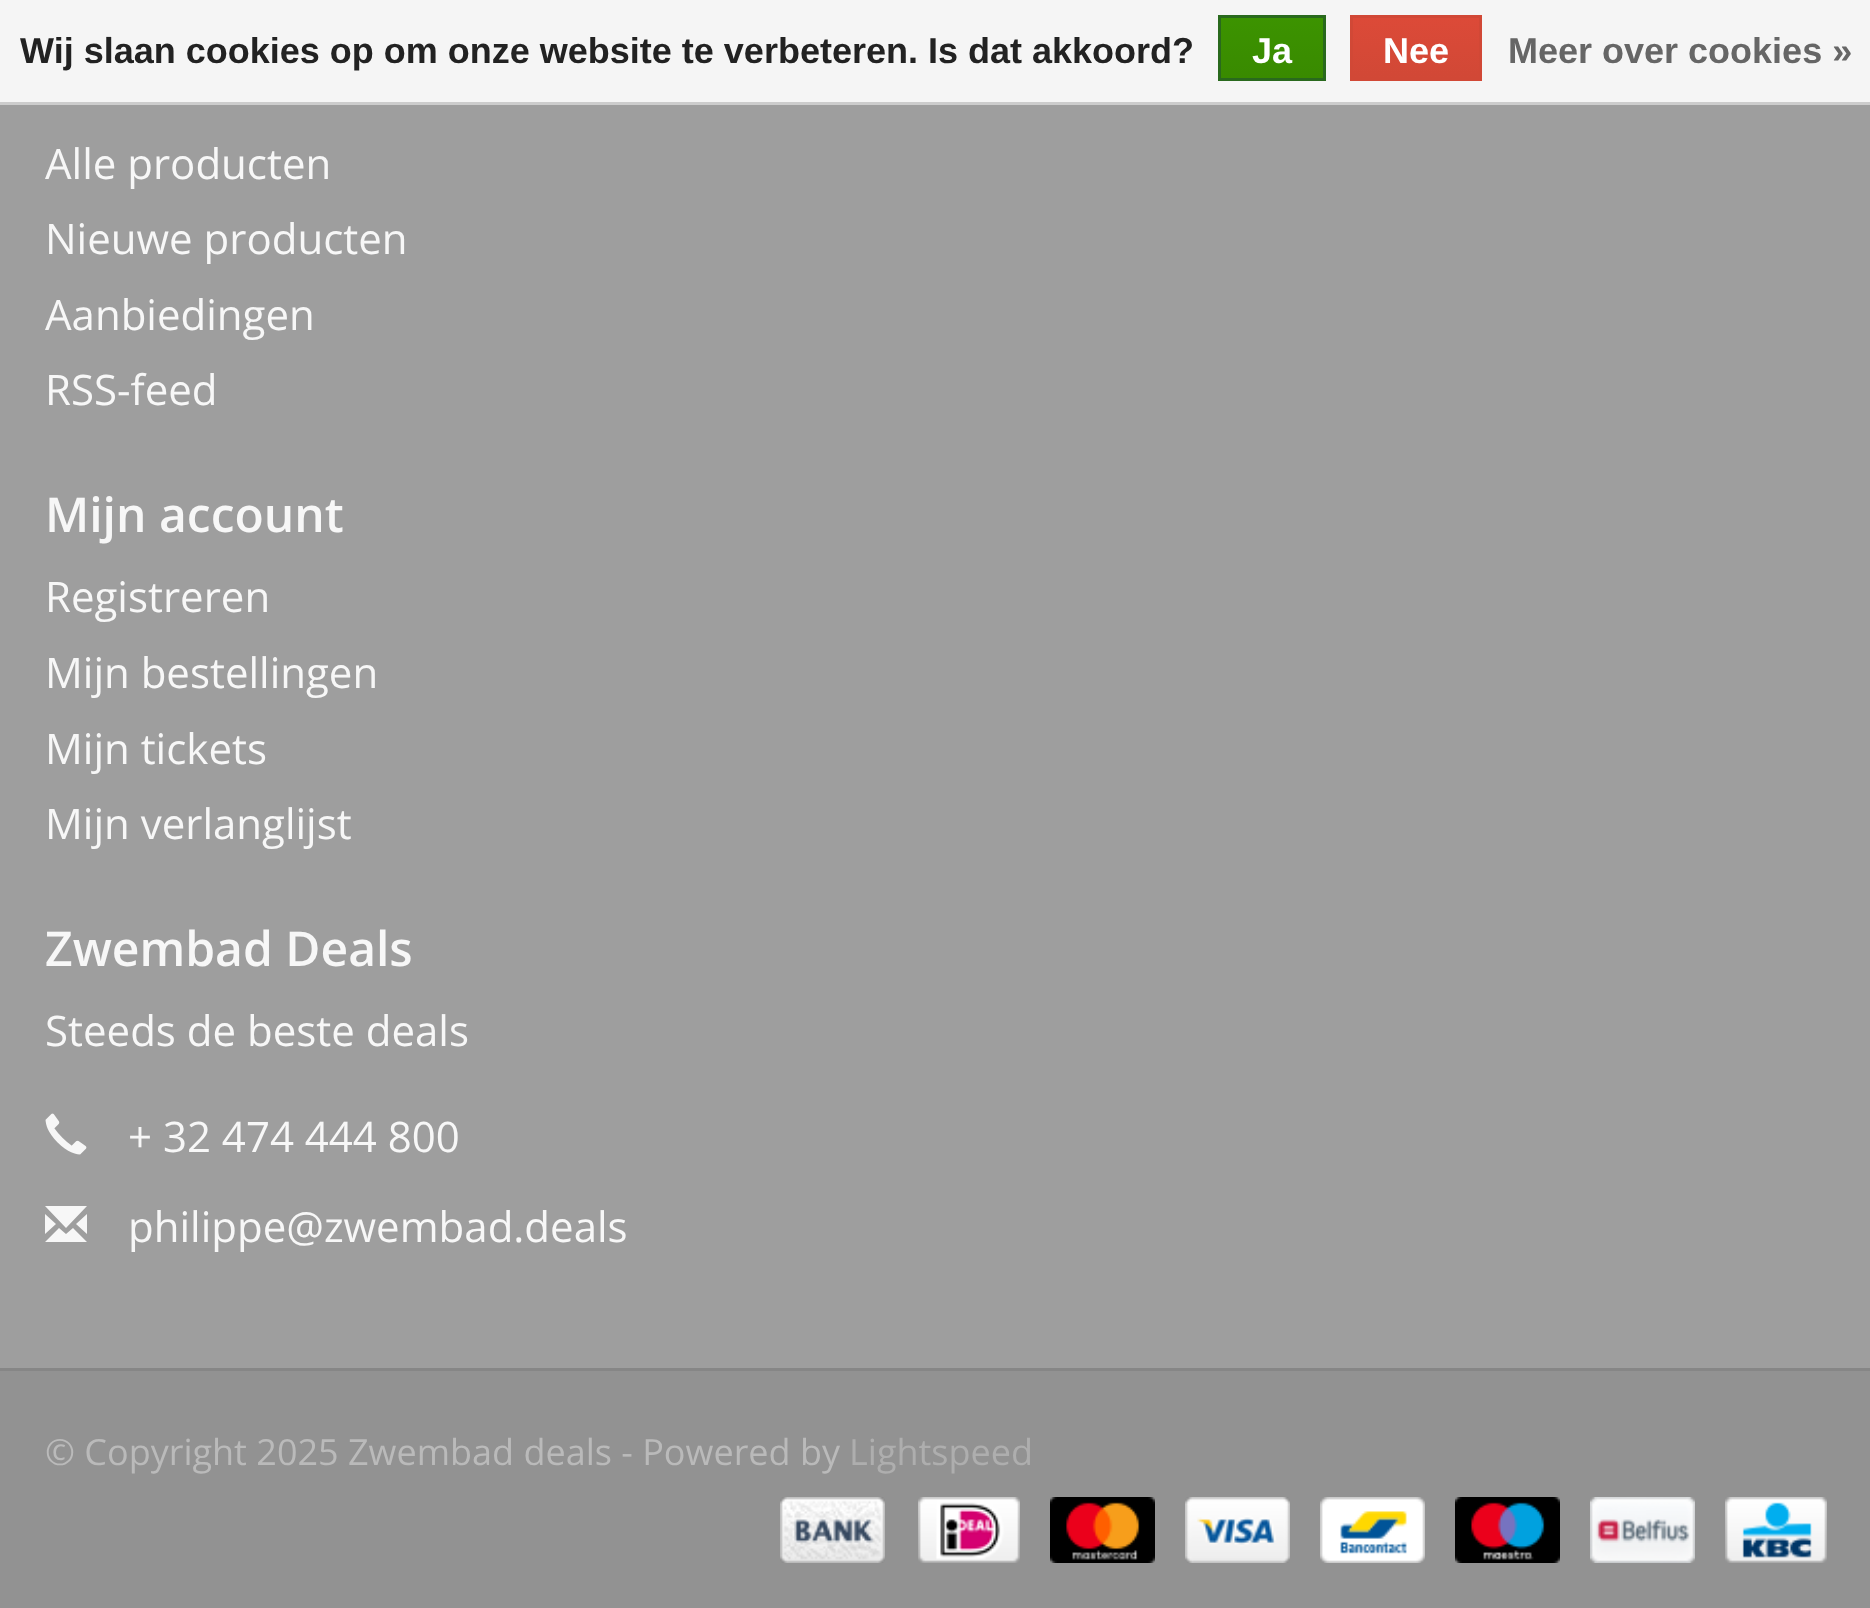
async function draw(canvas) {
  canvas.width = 1870
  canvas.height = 1608
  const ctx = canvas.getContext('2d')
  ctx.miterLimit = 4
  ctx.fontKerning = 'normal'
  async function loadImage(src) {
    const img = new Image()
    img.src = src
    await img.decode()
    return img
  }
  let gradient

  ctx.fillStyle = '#9e9e9e'
  ctx.fillRect(0, 0, 1870, 1608)
  ctx.fillStyle = '#f5f5f5'
  ctx.fillRect(0, 0, 1870, 102)
  ctx.fillStyle = '#ccc'
  ctx.fillRect(0, 102, 1870, 3)
  ctx.font = 'bold 36px Liberation Sans'
  ctx.fillStyle = '#222'
  ctx.fillText('Wij slaan cookies op om onze website te verbeteren. Is dat akkoord?', 20, 63)
  gradient = ctx.createLinearGradient(1272, 18, 1272, 78)
  gradient.addColorStop(0, '#3c9300')
  gradient.addColorStop(1, '#398a00')
  ctx.fillStyle = gradient
  ctx.fillRect(1221, 18, 102, 60)
  ctx.strokeStyle = '#29691d'
  ctx.lineWidth = 3
  ctx.strokeRect(1219.5, 16.5, 105, 63)
  ctx.fillStyle = '#fff'
  ctx.fillText('Ja', 1252, 63)
  gradient = ctx.createLinearGradient(1416, 18, 1416, 78)
  gradient.addColorStop(0, '#dc4a38')
  gradient.addColorStop(1, '#d14836')
  ctx.fillStyle = gradient
  ctx.fillRect(1353, 18, 126, 60)
  ctx.strokeStyle = '#d14836'
  ctx.strokeRect(1351.5, 16.5, 129, 63)
  ctx.fillStyle = '#fff'
  ctx.fillText('Nee', 1383, 63)
  ctx.fillStyle = '#666'
  ctx.fillText('Meer over cookies »', 1508, 63)
  ctx.font = '42px Open Sans'
  ctx.fillStyle = '#f7f7f7'
  ctx.fillText('Alle producten', 45, 179)
  ctx.fillText('Nieuwe producten', 45, 254)
  ctx.fillText('Aanbiedingen', 45, 330)
  ctx.fillText('RSS-feed', 45, 405)
  ctx.font = '600 48px Open Sans'
  ctx.fillText('Mijn account', 45, 532)
  ctx.font = '42px Open Sans'
  ctx.fillText('Registreren', 45, 612)
  ctx.fillText('Mijn bestellingen', 45, 688)
  ctx.fillText('Mijn tickets', 45, 764)
  ctx.fillText('Mijn verlanglijst', 45, 839)
  ctx.font = '600 48px Open Sans'
  ctx.fillText('Zwembad Deals', 45, 966)
  ctx.font = '42px Open Sans'
  ctx.fillText('Steeds de beste deals', 45, 1046)
  ctx.drawImage(await loadImage('image0.png'), 45, 1113, 42, 42)
  ctx.fillText('+ 32 474 444 800', 128, 1152)
  ctx.beginPath()
  ctx.moveTo(45, 1242)
  ctx.lineTo(59, 1228)
  ctx.lineTo(66, 1234)
  ctx.lineTo(73, 1228)
  ctx.lineTo(87, 1242)
  ctx.closePath()
  ctx.moveTo(45, 1234)
  ctx.lineTo(45, 1214)
  ctx.lineTo(56, 1224)
  ctx.closePath()
  ctx.moveTo(45, 1206)
  ctx.lineTo(66, 1228)
  ctx.lineTo(87, 1206)
  ctx.closePath()
  ctx.moveTo(76, 1224)
  ctx.lineTo(87, 1214)
  ctx.lineTo(87, 1234)
  ctx.closePath()
  ctx.fill()
  ctx.fillText('philippe@zwembad.deals', 128, 1242)
  ctx.fillStyle = '#868686'
  ctx.fillRect(0, 1368, 1870, 3)
  ctx.fillStyle = '#929292'
  ctx.fillRect(0, 1371, 1870, 237)
  ctx.font = '36px Open Sans'
  ctx.fillStyle = '#bababa'
  ctx.fillText('© Copyright 2025 Zwembad deals - Powered by', 45, 1465)
  ctx.fillStyle = '#aeaeae'
  ctx.fillText('Lightspeed', 849, 1465)
  ctx.drawImage(await loadImage('image1.png'), 780, 1497, 105, 66)
  ctx.drawImage(await loadImage('image2.png'), 918, 1497, 102, 66)
  ctx.drawImage(await loadImage('image3.png'), 1050, 1497, 105, 66)
  ctx.drawImage(await loadImage('image4.png'), 1185, 1497, 105, 66)
  ctx.drawImage(await loadImage('image5.png'), 1320, 1497, 105, 66)
  ctx.drawImage(await loadImage('image6.png'), 1455, 1497, 105, 66)
  ctx.drawImage(await loadImage('image7.png'), 1590, 1497, 105, 66)
  ctx.drawImage(await loadImage('image8.png'), 1725, 1497, 102, 66)
}

draw(document.querySelector('canvas'))
